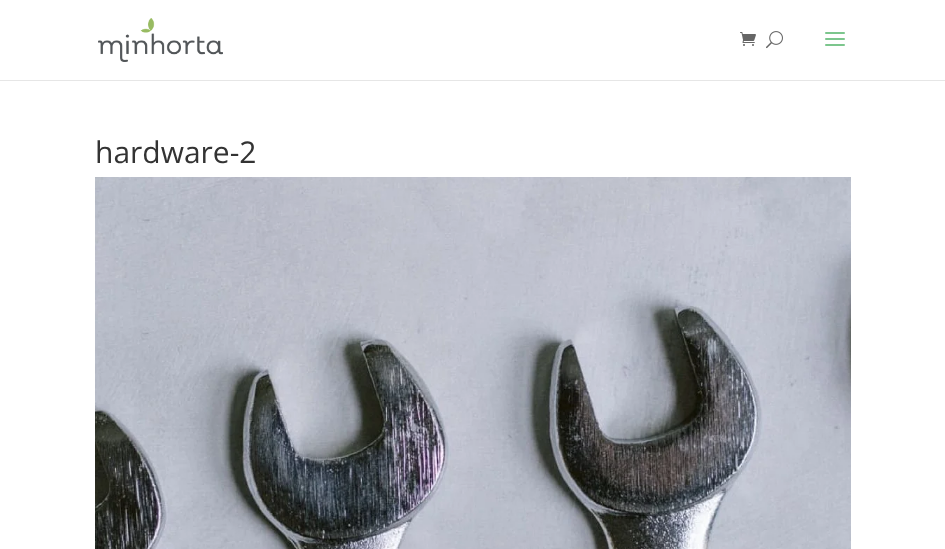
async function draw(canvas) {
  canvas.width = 945
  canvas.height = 549
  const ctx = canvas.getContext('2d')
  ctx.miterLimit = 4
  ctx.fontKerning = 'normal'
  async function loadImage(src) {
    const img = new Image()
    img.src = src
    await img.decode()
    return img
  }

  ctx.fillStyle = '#fff'
  ctx.fillRect(0, 0, 945, 549)
  ctx.fillStyle = '#e6e6e6'
  ctx.fillRect(0, 80, 945, 1)
  ctx.drawImage(await loadImage('image0.png'), 98, 18, 125, 44)
  ctx.drawImage(await loadImage('image1.png'), 740, 32, 16, 14)
  ctx.drawImage(await loadImage('image2.png'), 766, 31, 17, 18)
  ctx.drawImage(await loadImage('image3.png'), 825, 32, 20, 14)
  ctx.font = '30px Open Sans'
  ctx.fillStyle = '#333'
  ctx.fillText('hardware-2', 95, 163)
  ctx.drawImage(await loadImage('image4.png'), 95, 177, 756, 372)
}

draw(document.querySelector('canvas'))
